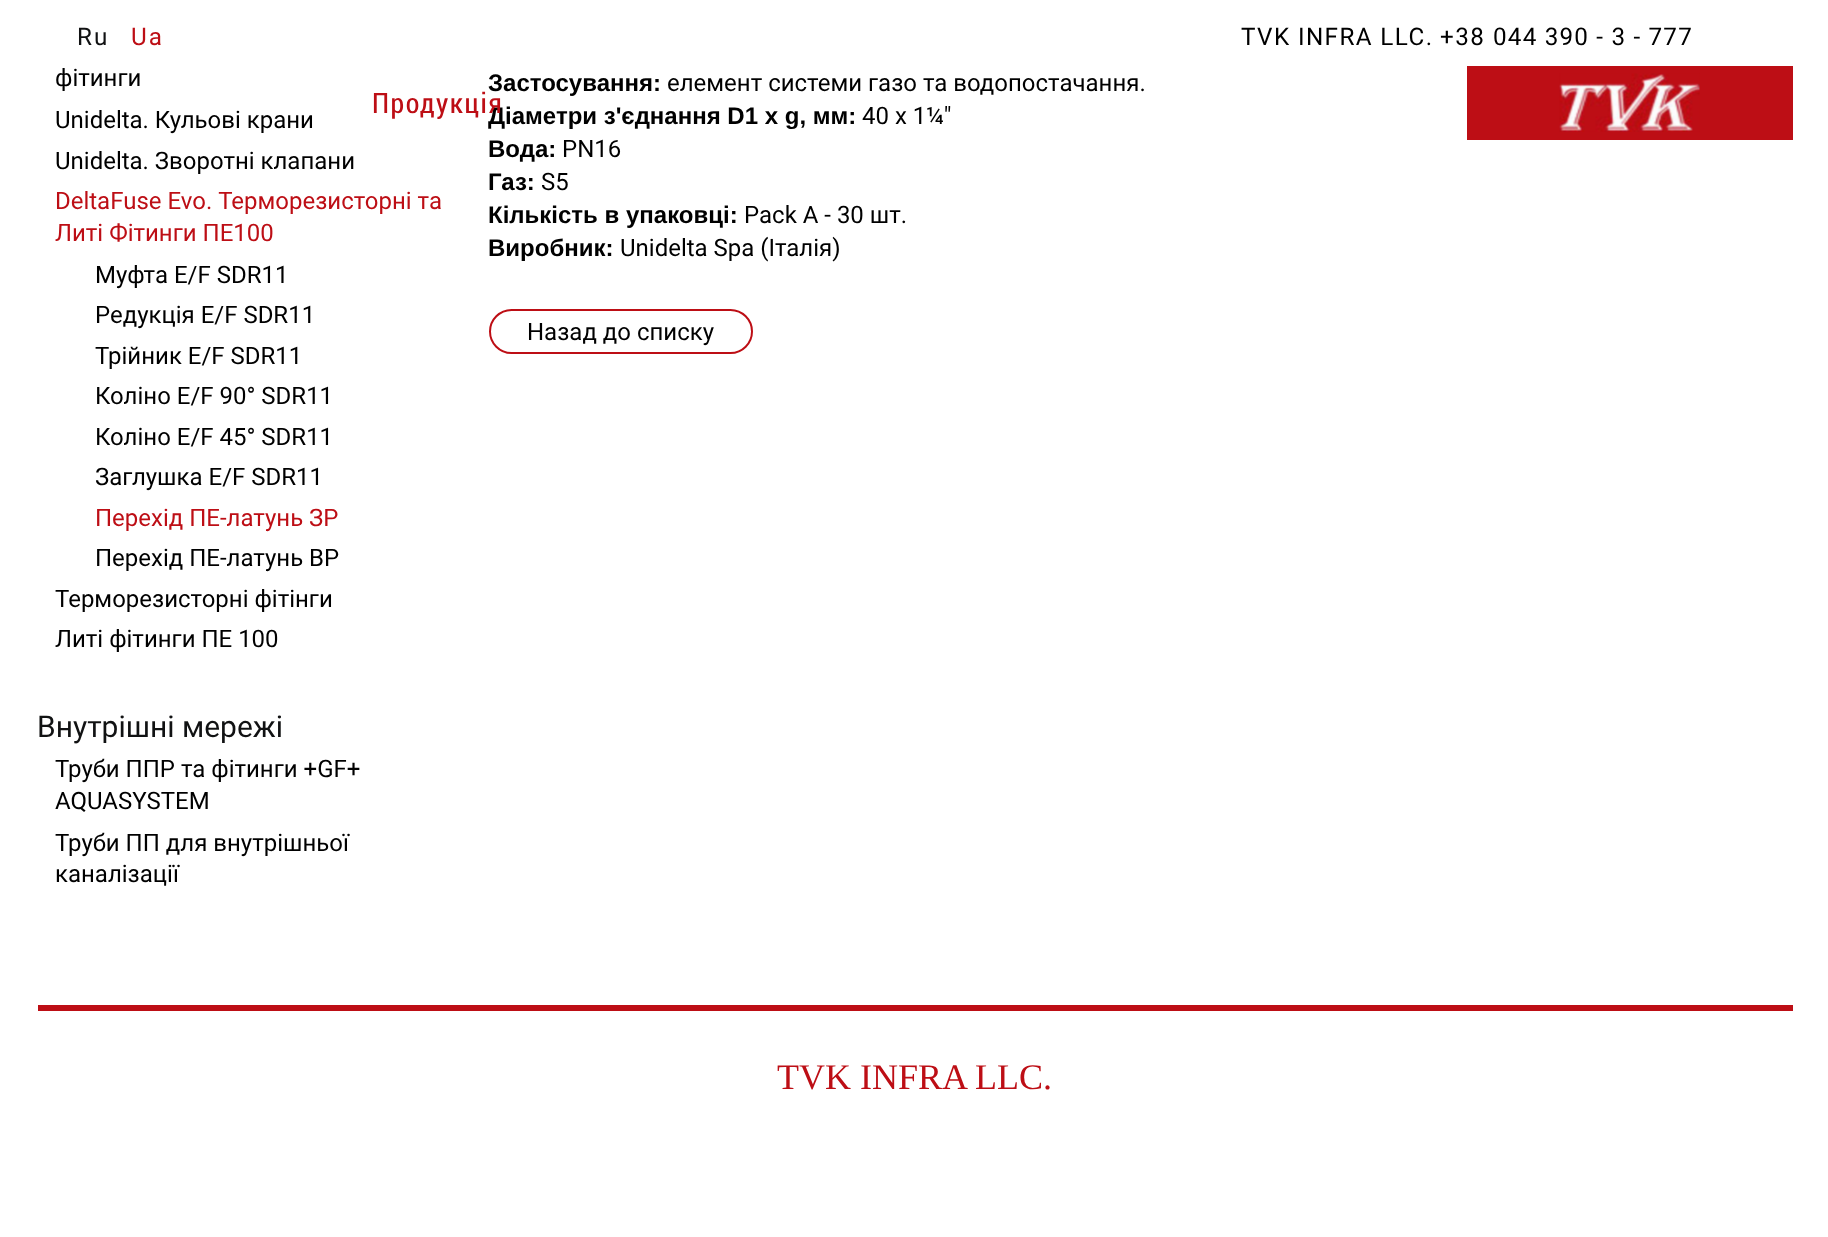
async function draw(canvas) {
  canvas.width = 1828
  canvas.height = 1237
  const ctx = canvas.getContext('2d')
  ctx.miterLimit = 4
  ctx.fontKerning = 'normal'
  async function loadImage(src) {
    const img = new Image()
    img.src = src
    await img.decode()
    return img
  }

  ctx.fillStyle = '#fff'
  ctx.fillRect(0, 0, 1828, 1237)
  ctx.letterSpacing = '2px'
  ctx.font = '24.25px Roboto'
  ctx.fillStyle = '#111213'
  ctx.fillText('Ru', 77, 45)
  ctx.fillStyle = '#bd0e15'
  ctx.fillText('Ua', 131, 45)
  ctx.letterSpacing = '1.4px'
  ctx.fillStyle = '#000'
  ctx.fillText('TVK INFRA LLC.', 1241, 45)
  ctx.letterSpacing = '1.5px'
  ctx.fillText('+38', 1440, 45)
  ctx.letterSpacing = '1.2px'
  ctx.fillText('044 390 - 3 - 777', 1493, 45)
  ctx.letterSpacing = '0px'
  ctx.font = 'bold 24px Liberation Sans'
  ctx.fillText('Діаметри з\'єднання D1 x g, мм:', 488, 124)
  ctx.letterSpacing = '1.5px'
  ctx.font = '28px Roboto Condensed'
  ctx.fillStyle = '#bd0e15'
  ctx.fillText('Продукція', 372, 113)
  ctx.fillRect(1467, 66, 326, 74)
  ctx.drawImage(await loadImage('image0.png'), 1559, 73, 141, 59)
  ctx.letterSpacing = '0px'
  ctx.font = '24px Roboto'
  ctx.fillStyle = '#000'
  ctx.fillText('фітинги', 55, 86)
  ctx.fillText('Unidelta. Кульові крани', 55, 128)
  ctx.fillText('Unidelta. Зворотні клапани', 55, 169)
  ctx.fillStyle = '#bd0e15'
  ctx.fillText('DeltaFuse Evo. Терморезисторні та', 55, 209)
  ctx.fillText('Литі Фітинги ПЕ100', 55, 241)
  ctx.fillStyle = '#000'
  ctx.fillText('Муфта E/F SDR11', 95, 283)
  ctx.fillText('Редукція E/F SDR11', 95, 323)
  ctx.fillText('Трійник E/F SDR11', 95, 364)
  ctx.fillText('Коліно E/F 90° SDR11', 95, 404)
  ctx.fillText('Коліно E/F 45° SDR11', 95, 445)
  ctx.fillText('Заглушка E/F SDR11', 95, 485)
  ctx.fillStyle = '#bd0e15'
  ctx.fillText('Перехід ПЕ-латунь ЗР', 95, 526)
  ctx.fillStyle = '#000'
  ctx.fillText('Перехід ПЕ-латунь ВР', 95, 566)
  ctx.fillText('Терморезисторні фітінги', 55, 607)
  ctx.fillText('Литі фітинги ПЕ 100', 55, 647)
  ctx.font = '30px Roboto'
  ctx.fillStyle = '#111213'
  ctx.fillText('Внутрішні мережі', 37, 737)
  ctx.font = '24px Roboto'
  ctx.fillStyle = '#000'
  ctx.fillText('Труби ППР та фітинги +GF+', 55, 777)
  ctx.fillText('AQUASYSTEM', 55, 809)
  ctx.fillText('Труби ПП для внутрішньої', 55, 851)
  ctx.fillText('каналізації', 55, 882)
  ctx.font = 'bold 24px Liberation Sans'
  ctx.fillText('Застосування:', 488, 91)
  ctx.font = '24px Roboto'
  ctx.fillText('елемент системи газо та водопостачання.', 667, 91)
  ctx.fillText('40 х 1¼″', 862, 124)
  ctx.font = 'bold 24px Liberation Sans'
  ctx.fillText('Вода:', 488, 157)
  ctx.font = '24px Roboto'
  ctx.fillText('PN16', 562, 157)
  ctx.font = 'bold 24px Liberation Sans'
  ctx.fillText('Газ:', 488, 190)
  ctx.font = '24px Roboto'
  ctx.fillText('S5', 541, 190)
  ctx.font = 'bold 24px Liberation Sans'
  ctx.fillText('Кількість в упаковці:', 488, 223)
  ctx.font = '24px Roboto'
  ctx.fillText('Pack A - 30 шт.', 744, 223)
  ctx.font = 'bold 24px Liberation Sans'
  ctx.fillText('Виробник:', 488, 256)
  ctx.font = '24px Roboto'
  ctx.fillText('Unidelta Spa (Італія)', 620, 256)
  ctx.beginPath()
  ctx.roundRect(490, 310, 262, 43, 21.5)
  ctx.strokeStyle = '#bd0e15'
  ctx.lineWidth = 2
  ctx.stroke()
  ctx.fillText('Назад до списку', 527, 340)
  ctx.fillStyle = '#bd0e15'
  ctx.fillRect(38, 1005, 1755, 6)
  ctx.font = '36px Liberation Serif'
  ctx.fillText('TVK INFRA LLC.', 777, 1089)
}

draw(document.querySelector('canvas'))
